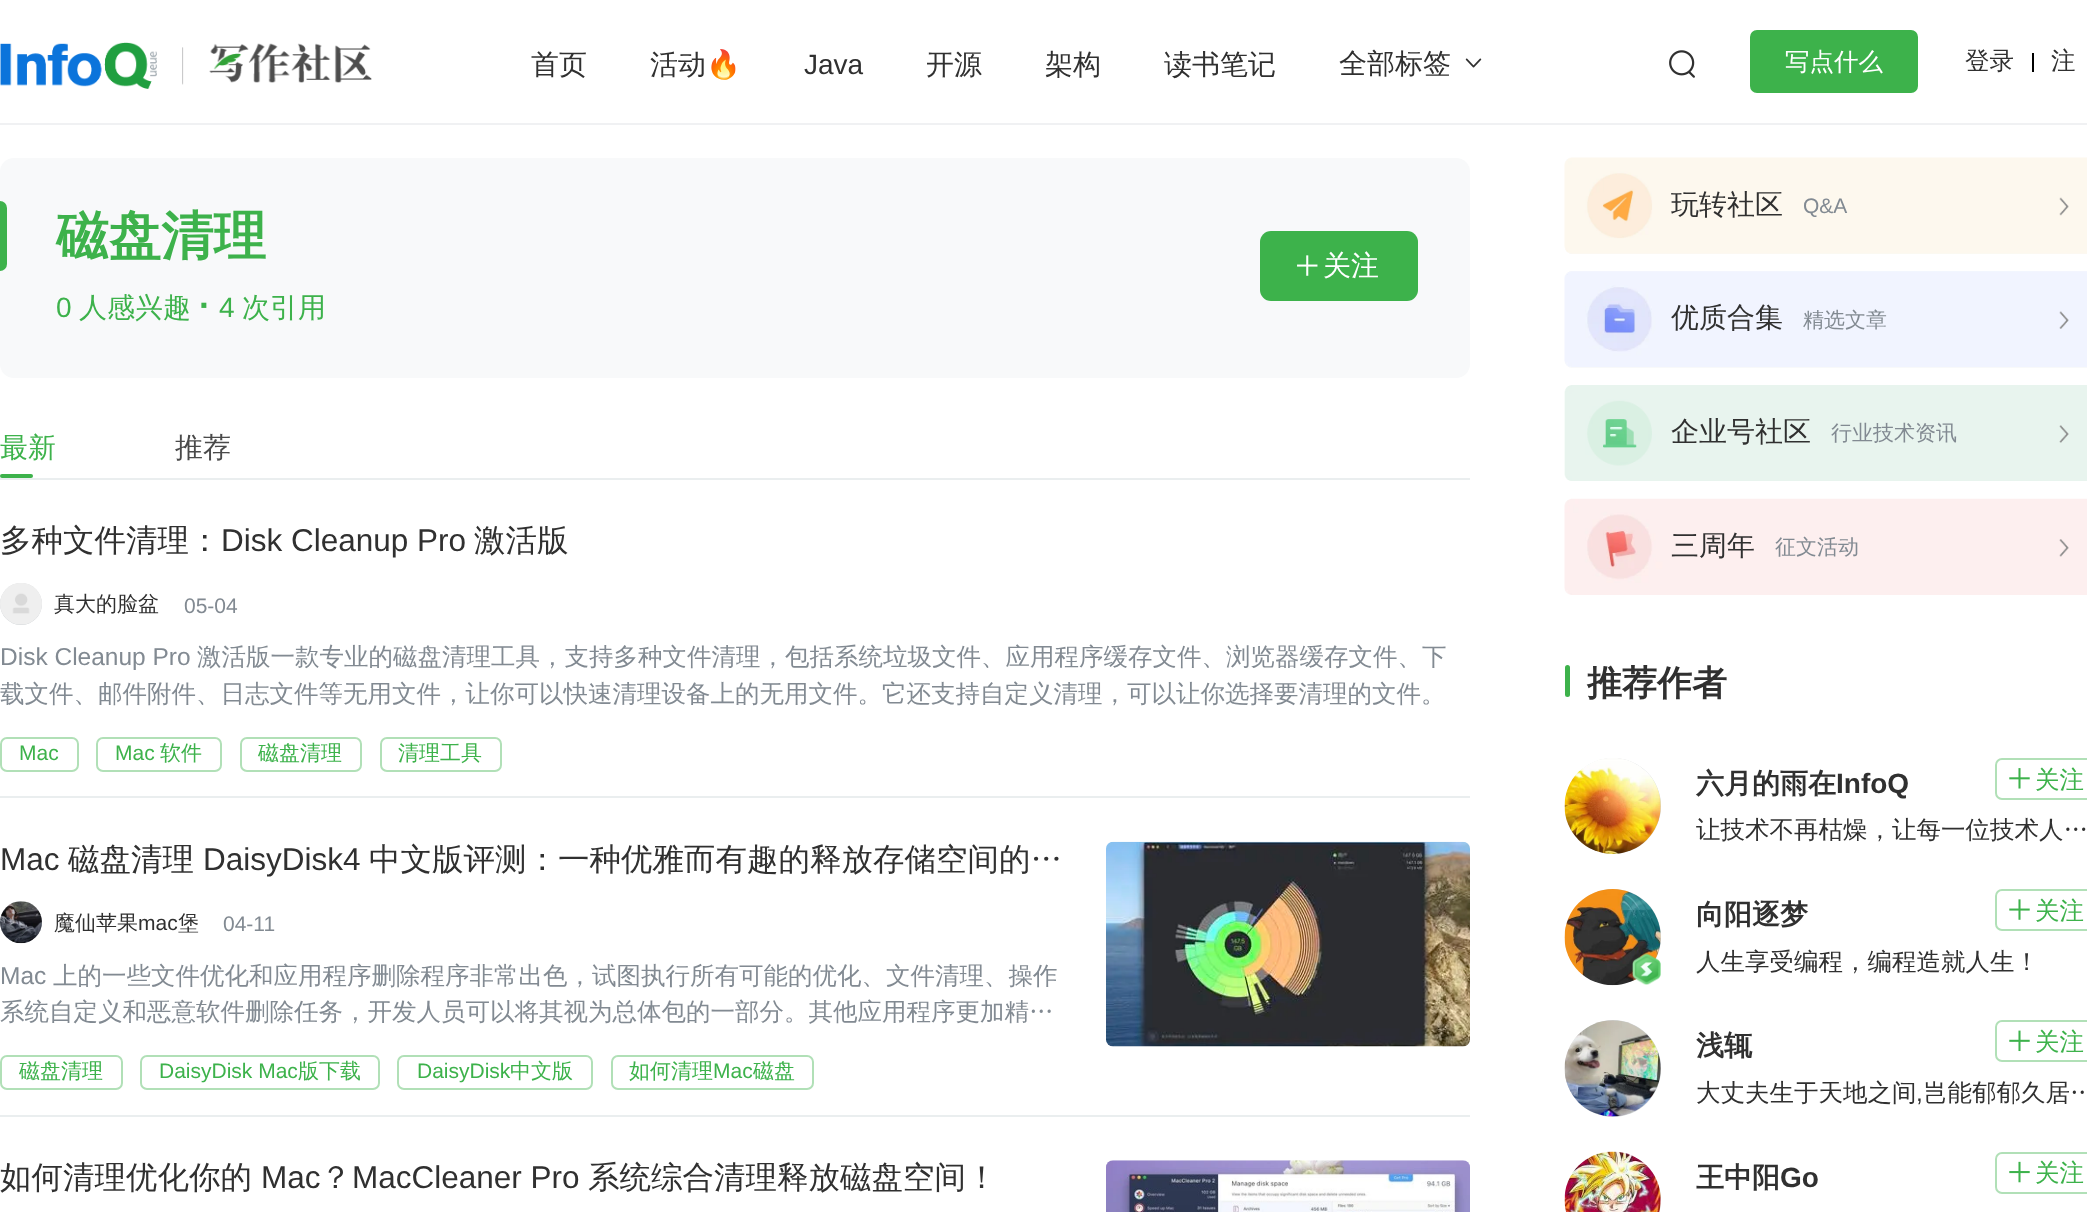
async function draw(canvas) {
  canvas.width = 2087
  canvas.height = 1212
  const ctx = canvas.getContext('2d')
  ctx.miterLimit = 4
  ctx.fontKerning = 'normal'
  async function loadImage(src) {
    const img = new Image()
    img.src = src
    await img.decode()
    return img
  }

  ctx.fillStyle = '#fff'
  ctx.fillRect(0, 0, 2087, 1212)
  ctx.fillStyle = '#f0f1f3'
  ctx.fillRect(0, 123, 2087, 2)
  ctx.drawImage(await loadImage('image0.png'), 0, 42, 184, 47)
  ctx.drawImage(await loadImage('image1.png'), 209, 43, 163, 40)
  ctx.font = '500 28px WenQuanYi Zen Hei'
  ctx.fillStyle = '#303030'
  ctx.fillText('首页', 531, 74)
  ctx.fillText('活动', 650, 74)
  ctx.font = '28px Noto Color Emoji'
  ctx.fillText('🔥', 706, 74)
  ctx.font = '28px Liberation Sans'
  ctx.fillText('Java', 804, 74)
  ctx.font = '500 28px WenQuanYi Zen Hei'
  ctx.fillText('开源', 926, 74)
  ctx.fillText('架构', 1045, 74)
  ctx.fillText('读书笔记', 1164, 74)
  ctx.fillText('全部标签', 1339, 73)
  ctx.drawImage(await loadImage('image2.png'), 1465, 58, 17, 10)
  ctx.drawImage(await loadImage('image3.png'), 1669, 50, 26, 28)
  ctx.fillStyle = '#3db24b'
  ctx.beginPath()
  ctx.roundRect(1751, 31, 166, 61, 6)
  ctx.fill()
  ctx.strokeStyle = '#3db24b'
  ctx.lineWidth = 2
  ctx.stroke()
  ctx.font = '500 24.5px WenQuanYi Zen Hei'
  ctx.fillStyle = '#fff'
  ctx.fillText('写点什么', 1785, 70)
  ctx.fillStyle = '#303030'
  ctx.fillText('登录', 1965, 69)
  ctx.fillStyle = '#000'
  ctx.fillRect(2032, 53, 2, 19)
  ctx.fillStyle = '#303030'
  ctx.fillText('注', 2051, 69)
  ctx.fillStyle = '#f8f9fa'
  ctx.beginPath()
  ctx.roundRect(0, 158, 1470, 220, 14)
  ctx.fill()
  ctx.fillStyle = '#3db24b'
  ctx.beginPath()
  ctx.roundRect(0, 201, 7, 70, [0, 7, 7, 0])
  ctx.fill()
  ctx.font = 'bold 52.5px WenQuanYi Zen Hei'
  ctx.fillText('磁盘清理', 56, 254)
  ctx.beginPath()
  ctx.roundRect(1260, 231, 158, 70, 11)
  ctx.fill()
  ctx.drawImage(await loadImage('image4.png'), 1297, 255, 21, 21)
  ctx.font = '500 28px WenQuanYi Zen Hei'
  ctx.fillStyle = '#fff'
  ctx.fillText('关注', 1323, 275)
  ctx.font = '28px Liberation Sans'
  ctx.fillStyle = '#3db24b'
  ctx.fillText('0', 56, 317)
  ctx.font = '500 28px WenQuanYi Zen Hei'
  ctx.fillText('人感兴趣', 79, 317)
  ctx.font = 'bold 35px Liberation Sans'
  ctx.fillText('·', 199, 317)
  ctx.font = '28px Liberation Sans'
  ctx.fillText('4', 219, 317)
  ctx.font = '500 28px WenQuanYi Zen Hei'
  ctx.fillText('次引用', 242, 317)
  ctx.fillText('最新', 0, 457)
  ctx.fillStyle = '#4a4a4a'
  ctx.fillText('推荐', 175, 457)
  ctx.fillStyle = '#3db24b'
  ctx.beginPath()
  ctx.roundRect(0, 474, 33, 4, 2)
  ctx.fill()
  ctx.fillStyle = '#eaeeef'
  ctx.fillRect(0, 478, 1470, 2)
  ctx.font = '500 31.5px WenQuanYi Zen Hei'
  ctx.fillStyle = '#303030'
  ctx.fillText('多种文件清理：', 0, 551)
  ctx.font = '31.5px Liberation Sans'
  ctx.fillText('Disk Cleanup Pro', 221, 551)
  ctx.font = '500 31.5px WenQuanYi Zen Hei'
  ctx.fillText('激活版', 474, 551)
  ctx.fillStyle = '#d0d4d7'
  ctx.beginPath()
  ctx.arc(21, 604, 21, 0, 2 * Math.PI)
  ctx.fill()
  ctx.drawImage(await loadImage('image5.png'), 0, 583, 42, 42)
  ctx.font = '500 21px WenQuanYi Zen Hei'
  ctx.fillStyle = '#303030'
  ctx.fillText('真大的脸盆', 54, 611)
  ctx.font = '21px Liberation Sans'
  ctx.fillStyle = '#828a92'
  ctx.fillText('05-04', 184, 613)
  ctx.font = '24.5px Liberation Sans'
  ctx.fillText('Disk Cleanup Pro', 0, 665)
  ctx.font = '500 24.5px WenQuanYi Zen Hei'
  ctx.fillText('激活版一款专业的磁盘清理工具，支持多种文件清理，包括系统垃圾文件、应用程序缓存文件、浏览器缓存文件、下', 197, 665)
  ctx.fillText('载文件、邮件附件、日志文件等无用文件，让你可以快速清理设备上的无用文件。它还支持自定义清理，可以让你选择要清理的文件。', 0, 702)
  ctx.beginPath()
  ctx.roundRect(1, 738, 77, 33, 6)
  ctx.strokeStyle = '#b1e0b7'
  ctx.stroke()
  ctx.font = '21px Liberation Sans'
  ctx.fillStyle = '#3db24b'
  ctx.fillText('Mac', 19, 760)
  ctx.beginPath()
  ctx.roundRect(97, 738, 124, 33, 6)
  ctx.stroke()
  ctx.fillText('Mac', 115, 760)
  ctx.font = '500 21px WenQuanYi Zen Hei'
  ctx.fillText('软件', 160, 760)
  ctx.beginPath()
  ctx.roundRect(241, 738, 120, 33, 6)
  ctx.stroke()
  ctx.fillText('磁盘清理', 258, 760)
  ctx.beginPath()
  ctx.roundRect(381, 738, 120, 33, 6)
  ctx.stroke()
  ctx.fillText('清理工具', 398, 760)
  ctx.fillStyle = '#eaeeef'
  ctx.fillRect(0, 796, 1470, 2)
  ctx.font = '31.5px Liberation Sans'
  ctx.fillStyle = '#303030'
  ctx.fillText('Mac', 0, 870)
  ctx.font = '500 31.5px WenQuanYi Zen Hei'
  ctx.fillText('磁盘清理', 68, 870)
  ctx.font = '31.5px Liberation Sans'
  ctx.fillText('DaisyDisk4', 203, 870)
  ctx.font = '500 31.5px WenQuanYi Zen Hei'
  ctx.fillText('中文版评测：一种优雅而有趣的释放存储空间的…', 369, 870)
  ctx.fillStyle = '#d0d4d7'
  ctx.beginPath()
  ctx.arc(21, 922, 21, 0, 2 * Math.PI)
  ctx.fill()
  ctx.drawImage(await loadImage('image6.png'), 0, 901, 42, 43)
  ctx.font = '500 21px WenQuanYi Zen Hei'
  ctx.fillStyle = '#303030'
  ctx.fillText('魔仙苹果', 54, 930)
  ctx.font = '21px Liberation Sans'
  ctx.fillText('mac', 138, 930)
  ctx.font = '500 21px WenQuanYi Zen Hei'
  ctx.fillText('堡', 178, 930)
  ctx.font = '21px Liberation Sans'
  ctx.fillStyle = '#828a92'
  ctx.fillText('04-11', 223, 931)
  ctx.font = '24.5px Liberation Sans'
  ctx.fillText('Mac', 0, 984)
  ctx.font = '500 24.5px WenQuanYi Zen Hei'
  ctx.fillText('上的一些文件优化和应用程序删除程序非常出色，试图执行所有可能的优化、文件清理、操作', 53, 984)
  ctx.fillText('系统自定义和恶意软件删除任务，开发人员可以将其视为总体包的一部分。其他应用程序更加精…', 0, 1020)
  ctx.beginPath()
  ctx.roundRect(1, 1056, 121, 33, 6)
  ctx.stroke()
  ctx.font = '500 21px WenQuanYi Zen Hei'
  ctx.fillStyle = '#3db24b'
  ctx.fillText('磁盘清理', 19, 1078)
  ctx.beginPath()
  ctx.roundRect(141, 1056, 238, 33, 6)
  ctx.stroke()
  ctx.font = '21px Liberation Sans'
  ctx.fillText('DaisyDisk Mac', 159, 1078)
  ctx.font = '500 21px WenQuanYi Zen Hei'
  ctx.fillText('版下载', 298, 1078)
  ctx.beginPath()
  ctx.roundRect(398, 1056, 194, 33, 6)
  ctx.stroke()
  ctx.font = '21px Liberation Sans'
  ctx.fillText('DaisyDisk', 417, 1078)
  ctx.font = '500 21px WenQuanYi Zen Hei'
  ctx.fillText('中文版', 510, 1078)
  ctx.beginPath()
  ctx.roundRect(612, 1056, 201, 33, 6)
  ctx.stroke()
  ctx.fillText('如何清理', 629, 1078)
  ctx.font = '21px Liberation Sans'
  ctx.fillText('Mac', 713, 1078)
  ctx.font = '500 21px WenQuanYi Zen Hei'
  ctx.fillText('磁盘', 753, 1078)
  ctx.drawImage(await loadImage('image7.png'), 1106, 841, 364, 206)
  ctx.fillStyle = '#eaeeef'
  ctx.fillRect(0, 1115, 1470, 2)
  ctx.font = '500 31.5px WenQuanYi Zen Hei'
  ctx.fillStyle = '#303030'
  ctx.fillText('如何清理优化你的', 0, 1188)
  ctx.font = '31.5px Liberation Sans'
  ctx.fillText('Mac', 261, 1188)
  ctx.font = '500 31.5px WenQuanYi Zen Hei'
  ctx.fillText('？', 320, 1188)
  ctx.font = '31.5px Liberation Sans'
  ctx.fillText('MacCleaner Pro', 352, 1188)
  ctx.font = '500 31.5px WenQuanYi Zen Hei'
  ctx.fillText('系统综合清理释放磁盘空间！', 588, 1188)
  ctx.drawImage(await loadImage('image8.png'), 1106, 1160, 364, 52)
  ctx.fillStyle = '#f8f9fa'
  ctx.beginPath()
  ctx.roundRect(1565, 158, 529, 96, 7)
  ctx.fill()
  ctx.drawImage(await loadImage('image9.png'), 1564, 157, 523, 97)
  ctx.font = '500 28px WenQuanYi Zen Hei'
  ctx.fillStyle = '#303030'
  ctx.fillText('玩转社区', 1671, 214)
  ctx.font = '21px Liberation Sans'
  ctx.fillStyle = '#828a92'
  ctx.fillText('Q&A', 1803, 213)
  ctx.drawImage(await loadImage('image10.png'), 2059, 197, 10, 19)
  ctx.fillStyle = '#f8f9fa'
  ctx.beginPath()
  ctx.roundRect(1565, 271, 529, 97, 7)
  ctx.fill()
  ctx.drawImage(await loadImage('image11.png'), 1564, 271, 523, 96)
  ctx.font = '500 28px WenQuanYi Zen Hei'
  ctx.fillStyle = '#303030'
  ctx.fillText('优质合集', 1671, 327)
  ctx.font = '500 21px WenQuanYi Zen Hei'
  ctx.fillStyle = '#828a92'
  ctx.fillText('精选文章', 1803, 327)
  ctx.drawImage(await loadImage('image12.png'), 2059, 311, 10, 18)
  ctx.fillStyle = '#f8f9fa'
  ctx.beginPath()
  ctx.roundRect(1565, 385, 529, 96, 7)
  ctx.fill()
  ctx.drawImage(await loadImage('image13.png'), 1564, 385, 523, 96)
  ctx.font = '500 28px WenQuanYi Zen Hei'
  ctx.fillStyle = '#303030'
  ctx.fillText('企业号社区', 1671, 441)
  ctx.font = '500 21px WenQuanYi Zen Hei'
  ctx.fillStyle = '#828a92'
  ctx.fillText('行业技术资讯', 1831, 440)
  ctx.drawImage(await loadImage('image14.png'), 2059, 425, 10, 18)
  ctx.drawImage(await loadImage('image15.png'), 1564, 498, 523, 97)
  ctx.font = '500 28px WenQuanYi Zen Hei'
  ctx.fillStyle = '#303030'
  ctx.fillText('三周年', 1671, 555)
  ctx.font = '500 21px WenQuanYi Zen Hei'
  ctx.fillStyle = '#828a92'
  ctx.fillText('征文活动', 1775, 554)
  ctx.drawImage(await loadImage('image16.png'), 2059, 539, 10, 18)
  ctx.fillStyle = '#3db24b'
  ctx.beginPath()
  ctx.roundRect(1565, 665, 5, 32, 2.5)
  ctx.fill()
  ctx.font = 'bold 35px WenQuanYi Zen Hei'
  ctx.fillStyle = '#303030'
  ctx.fillText('推荐作者', 1587, 695)
  ctx.fillStyle = '#d0d4d7'
  ctx.beginPath()
  ctx.arc(1613, 806, 48, 0, 2 * Math.PI)
  ctx.fill()
  ctx.drawImage(await loadImage('image17.png'), 1564, 758, 97, 96)
  ctx.font = 'bold 28px WenQuanYi Zen Hei'
  ctx.fillStyle = '#303030'
  ctx.fillText('六月的雨在', 1696, 793)
  ctx.font = 'bold 28px Liberation Sans'
  ctx.fillText('InfoQ', 1836, 793)
  ctx.beginPath()
  ctx.roundRect(1996, 759, 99, 40, 6)
  ctx.stroke()
  ctx.drawImage(await loadImage('image18.png'), 2009, 768, 21, 21)
  ctx.font = '500 24.5px WenQuanYi Zen Hei'
  ctx.fillStyle = '#3db24b'
  ctx.fillText('关注', 2035, 788)
  ctx.fillStyle = '#303030'
  ctx.fillText('让技术不再枯燥，让每一位技术人…', 1696, 838)
  ctx.fillStyle = '#d0d4d7'
  ctx.beginPath()
  ctx.arc(1613, 937, 48, 0, 2 * Math.PI)
  ctx.fill()
  ctx.drawImage(await loadImage('image19.png'), 1564, 889, 97, 97)
  ctx.drawImage(await loadImage('image20.png'), 1632, 953, 29, 32)
  ctx.font = 'bold 28px WenQuanYi Zen Hei'
  ctx.fillStyle = '#303030'
  ctx.fillText('向阳逐梦', 1696, 924)
  ctx.beginPath()
  ctx.roundRect(1996, 890, 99, 40, 6)
  ctx.stroke()
  ctx.drawImage(await loadImage('image21.png'), 2009, 899, 21, 21)
  ctx.font = '500 24.5px WenQuanYi Zen Hei'
  ctx.fillStyle = '#3db24b'
  ctx.fillText('关注', 2035, 919)
  ctx.fillStyle = '#303030'
  ctx.fillText('人生享受编程，编程造就人生！', 1696, 970)
  ctx.fillStyle = '#d0d4d7'
  ctx.beginPath()
  ctx.roundRect(1565, 1020, 96, 97, 48)
  ctx.fill()
  ctx.drawImage(await loadImage('image22.png'), 1564, 1020, 97, 97)
  ctx.font = 'bold 28px WenQuanYi Zen Hei'
  ctx.fillStyle = '#303030'
  ctx.fillText('浅辄', 1696, 1055)
  ctx.beginPath()
  ctx.roundRect(1996, 1021, 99, 40, 6)
  ctx.stroke()
  ctx.drawImage(await loadImage('image23.png'), 2009, 1030, 21, 22)
  ctx.font = '500 24.5px WenQuanYi Zen Hei'
  ctx.fillStyle = '#3db24b'
  ctx.fillText('关注', 2035, 1050)
  ctx.fillStyle = '#303030'
  ctx.fillText('大丈夫生于天地之间', 1696, 1101)
  ctx.font = '24.5px Liberation Sans'
  ctx.fillText(',', 1916, 1101)
  ctx.font = '500 24.5px WenQuanYi Zen Hei'
  ctx.fillText('岂能郁郁久居…', 1923, 1101)
  ctx.fillStyle = '#d0d4d7'
  ctx.beginPath()
  ctx.arc(1613, 1200, 48, 0, 2 * Math.PI)
  ctx.fill()
  ctx.drawImage(await loadImage('image24.png'), 1564, 1151, 97, 61)
  ctx.font = 'bold 28px WenQuanYi Zen Hei'
  ctx.fillStyle = '#303030'
  ctx.fillText('王中阳', 1696, 1187)
  ctx.font = 'bold 28px Liberation Sans'
  ctx.fillText('Go', 1780, 1187)
  ctx.beginPath()
  ctx.roundRect(1996, 1153, 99, 40, 6)
  ctx.stroke()
  ctx.drawImage(await loadImage('image25.png'), 2009, 1161, 21, 22)
  ctx.font = '500 24.5px WenQuanYi Zen Hei'
  ctx.fillStyle = '#3db24b'
  ctx.fillText('关注', 2035, 1181)
}

draw(document.querySelector('canvas'))
